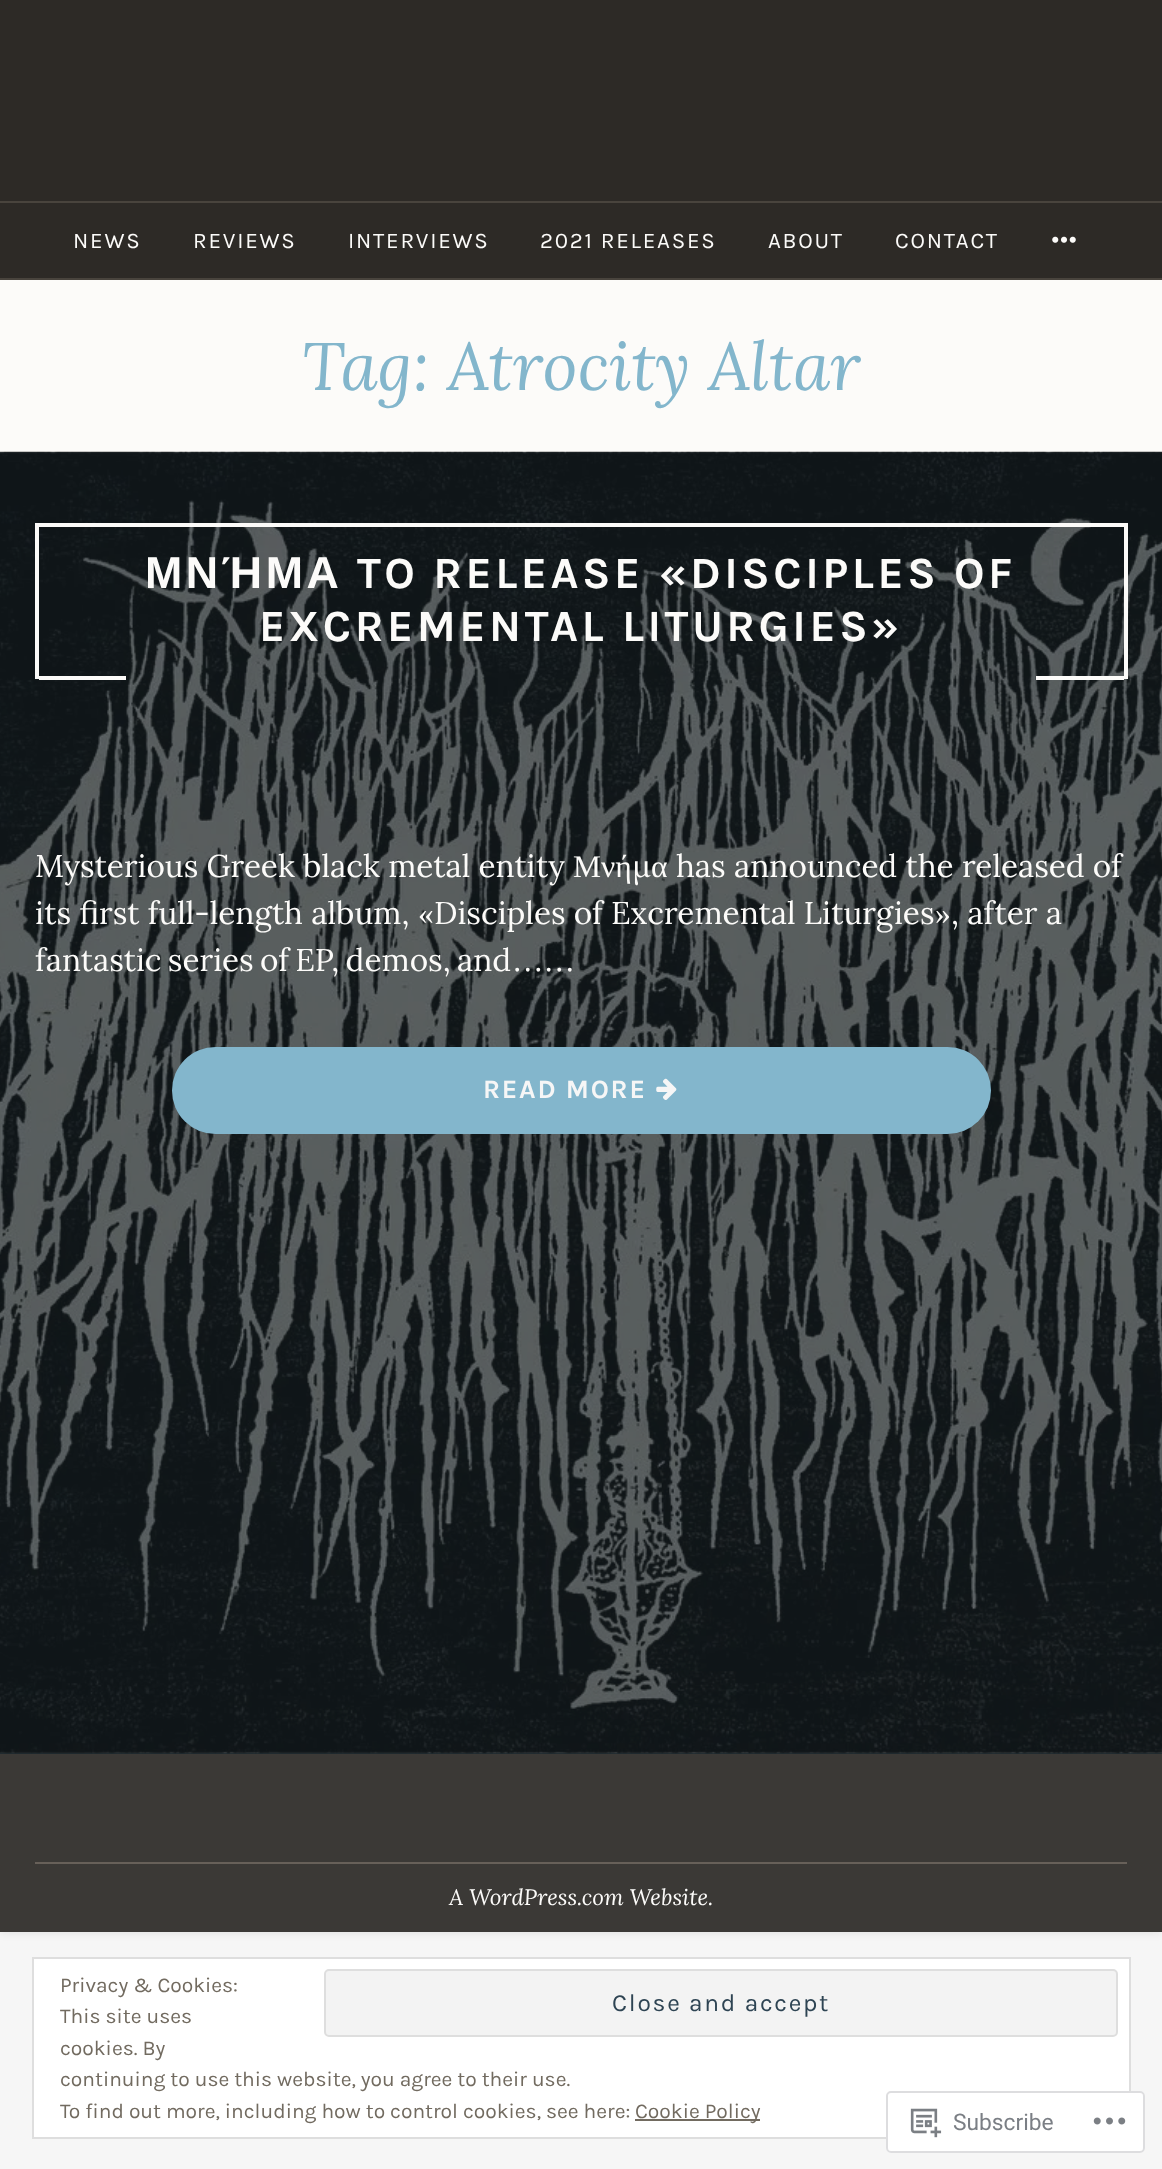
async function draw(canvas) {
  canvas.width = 1162
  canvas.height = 2169
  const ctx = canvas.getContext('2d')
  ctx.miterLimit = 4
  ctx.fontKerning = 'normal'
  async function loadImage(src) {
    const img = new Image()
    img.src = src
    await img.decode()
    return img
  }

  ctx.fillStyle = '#f6f6f6'
  ctx.fillRect(0, 0, 1162, 2169)
  ctx.fillStyle = '#0000001a'
  ctx.filter = 'blur(5px)'
  ctx.beginPath()
  ctx.rect(0, 0, 1162, 1932)
  ctx.fill()
  ctx.filter = 'none'
  ctx.fillStyle = '#fcfbf9'
  ctx.fillRect(0, 280, 1162, 172)
  ctx.fillStyle = '#2d2a26'
  ctx.fillRect(0, 0, 1162, 278)
  ctx.fillStyle = '#49443d'
  ctx.fillRect(0, 201, 1162, 2)
  ctx.fillRect(0, 278, 1162, 2)
  ctx.letterSpacing = '1.75px'
  ctx.font = '22.4px Karla'
  ctx.fillStyle = '#fcfbf9'
  ctx.fillText('NEWS', 73, 248)
  ctx.fillText('REVIEWS', 193, 248)
  ctx.fillText('INTERVIEWS', 348, 248)
  ctx.fillText('2021 RELEASES', 540, 248)
  ctx.fillText('ABOUT', 768, 248)
  ctx.fillText('CONTACT', 895, 248)
  ctx.drawImage(await loadImage('image0.png'), 1052, 236, 24, 7)
  ctx.letterSpacing = '0px'
  ctx.font = 'italic 67.25px Lora'
  ctx.fillStyle = '#83b6cc'
  ctx.fillText('Tag: Atrocity Altar', 302, 390)
  ctx.fillStyle = '#1f2b30'
  ctx.fillRect(0, 452, 1162, 1302)
  ctx.drawImage(await loadImage('image1.png'), 0, 451, 1162, 1303)
  ctx.fillStyle = '#fcfbf9'
  ctx.fillRect(35, 523, 1092, 4)
  ctx.fillRect(1124, 523, 4, 156)
  ctx.fillRect(35, 523, 4, 156)
  ctx.letterSpacing = '3.5px'
  ctx.font = 'bold 44.75px Liberation Sans'
  ctx.fillText('ΜΝΉΜΑ', 145, 588)
  ctx.font = 'bold 44.75px Karla'
  ctx.fillText('TO RELEASE «DISCIPLES OF', 357, 588)
  ctx.fillText('EXCREMENTAL LITURGIES»', 259, 641)
  ctx.fillRect(39, 676, 87, 4)
  ctx.fillRect(1036, 676, 88, 4)
  ctx.letterSpacing = '0px'
  ctx.font = '31.5px Lora'
  ctx.fillText('Mysterious Greek black metal entity', 35, 877)
  ctx.font = '31.5px Liberation Serif'
  ctx.fillText('Μνή', 573, 877)
  ctx.font = '31.5px Lora'
  ctx.fillText('μ', 632, 877)
  ctx.font = '31.5px Liberation Serif'
  ctx.fillText('α', 651, 877)
  ctx.font = '31.5px Lora'
  ctx.fillText('has announced the released of', 676, 877)
  ctx.fillText('its first full-length album,', 35, 924)
  ctx.font = '31.5px Liberation Serif'
  ctx.fillText('«', 418, 924)
  ctx.font = '31.5px Lora'
  ctx.fillText('Disciples of Excremental Liturgies', 434, 924)
  ctx.font = '31.5px Liberation Serif'
  ctx.fillText('»', 935, 924)
  ctx.font = '31.5px Lora'
  ctx.fillText(', after a', 951, 924)
  ctx.wordSpacing = '-2px'
  ctx.fillText('fantastic series of EP, demos, and', 35, 971)
  ctx.wordSpacing = '0px'
  ctx.font = '31.5px Liberation Serif'
  ctx.fillText('……', 512, 971)
  ctx.fillStyle = '#83b6cc'
  ctx.beginPath()
  ctx.roundRect(172, 1047, 819, 87, 43.5)
  ctx.fill()
  ctx.letterSpacing = '1.75px'
  ctx.font = 'bold 26.5px Karla'
  ctx.fillStyle = '#f6f6f6'
  ctx.fillText('READ MORE', 483, 1098)
  ctx.drawImage(await loadImage('image2.png'), 656, 1078, 21, 22)
  ctx.fillStyle = '#3b3936'
  ctx.fillRect(0, 1754, 1162, 178)
  ctx.fillStyle = '#676059'
  ctx.fillRect(35, 1862, 1092, 2)
  ctx.letterSpacing = '0px'
  ctx.font = 'italic 22.4px Lora'
  ctx.fillStyle = '#fcfbf9'
  ctx.fillText('A WordPress.com Website.', 449, 1905)
  ctx.fillStyle = '#fff'
  ctx.beginPath()
  ctx.rect(33, 1958, 1097, 180)
  ctx.fill()
  ctx.strokeStyle = '#dedede'
  ctx.lineWidth = 2
  ctx.stroke()
  ctx.font = '21px Karla'
  ctx.fillStyle = '#726b60'
  ctx.fillText('Privacy & Cookies:', 60, 1992)
  ctx.fillText('This site uses', 60, 2023)
  ctx.fillStyle = '#f3f3f3'
  ctx.beginPath()
  ctx.roundRect(325, 1970, 792, 66, 4)
  ctx.fill()
  ctx.stroke()
  ctx.letterSpacing = '1.75px'
  ctx.font = '24.5px Karla'
  ctx.fillStyle = '#2e4453'
  ctx.fillText('Close and accept', 612, 2011)
  ctx.letterSpacing = '0px'
  ctx.font = '21px Karla'
  ctx.fillStyle = '#726b60'
  ctx.fillText('cookies. By', 60, 2055)
  ctx.fillText('continuing to use this website, you agree to their use.', 60, 2086)
  ctx.fillText('To find out more, including how to control cookies, see here:', 60, 2118)
  ctx.fillRect(635, 2119, 125, 2)
  ctx.fillText('Cookie Policy', 635, 2118)
  ctx.fillStyle = '#fffffffa'
  ctx.beginPath()
  ctx.roundRect(886, 2091, 259, 62, 5)
  ctx.fill()
  ctx.beginPath()
  ctx.roundRect(887, 2092, 257, 60, 4)
  ctx.strokeStyle = '#dcdcdefa'
  ctx.stroke()
  ctx.drawImage(await loadImage('image3.png'), 910, 2108, 32, 30)
  ctx.font = '22.75px Roboto'
  ctx.fillStyle = '#7b7f85'
  ctx.fillText('Subscribe', 953, 2130)
  ctx.drawImage(await loadImage('image4.png'), 1093, 2117, 33, 8)
}

draw(document.querySelector('canvas'))
